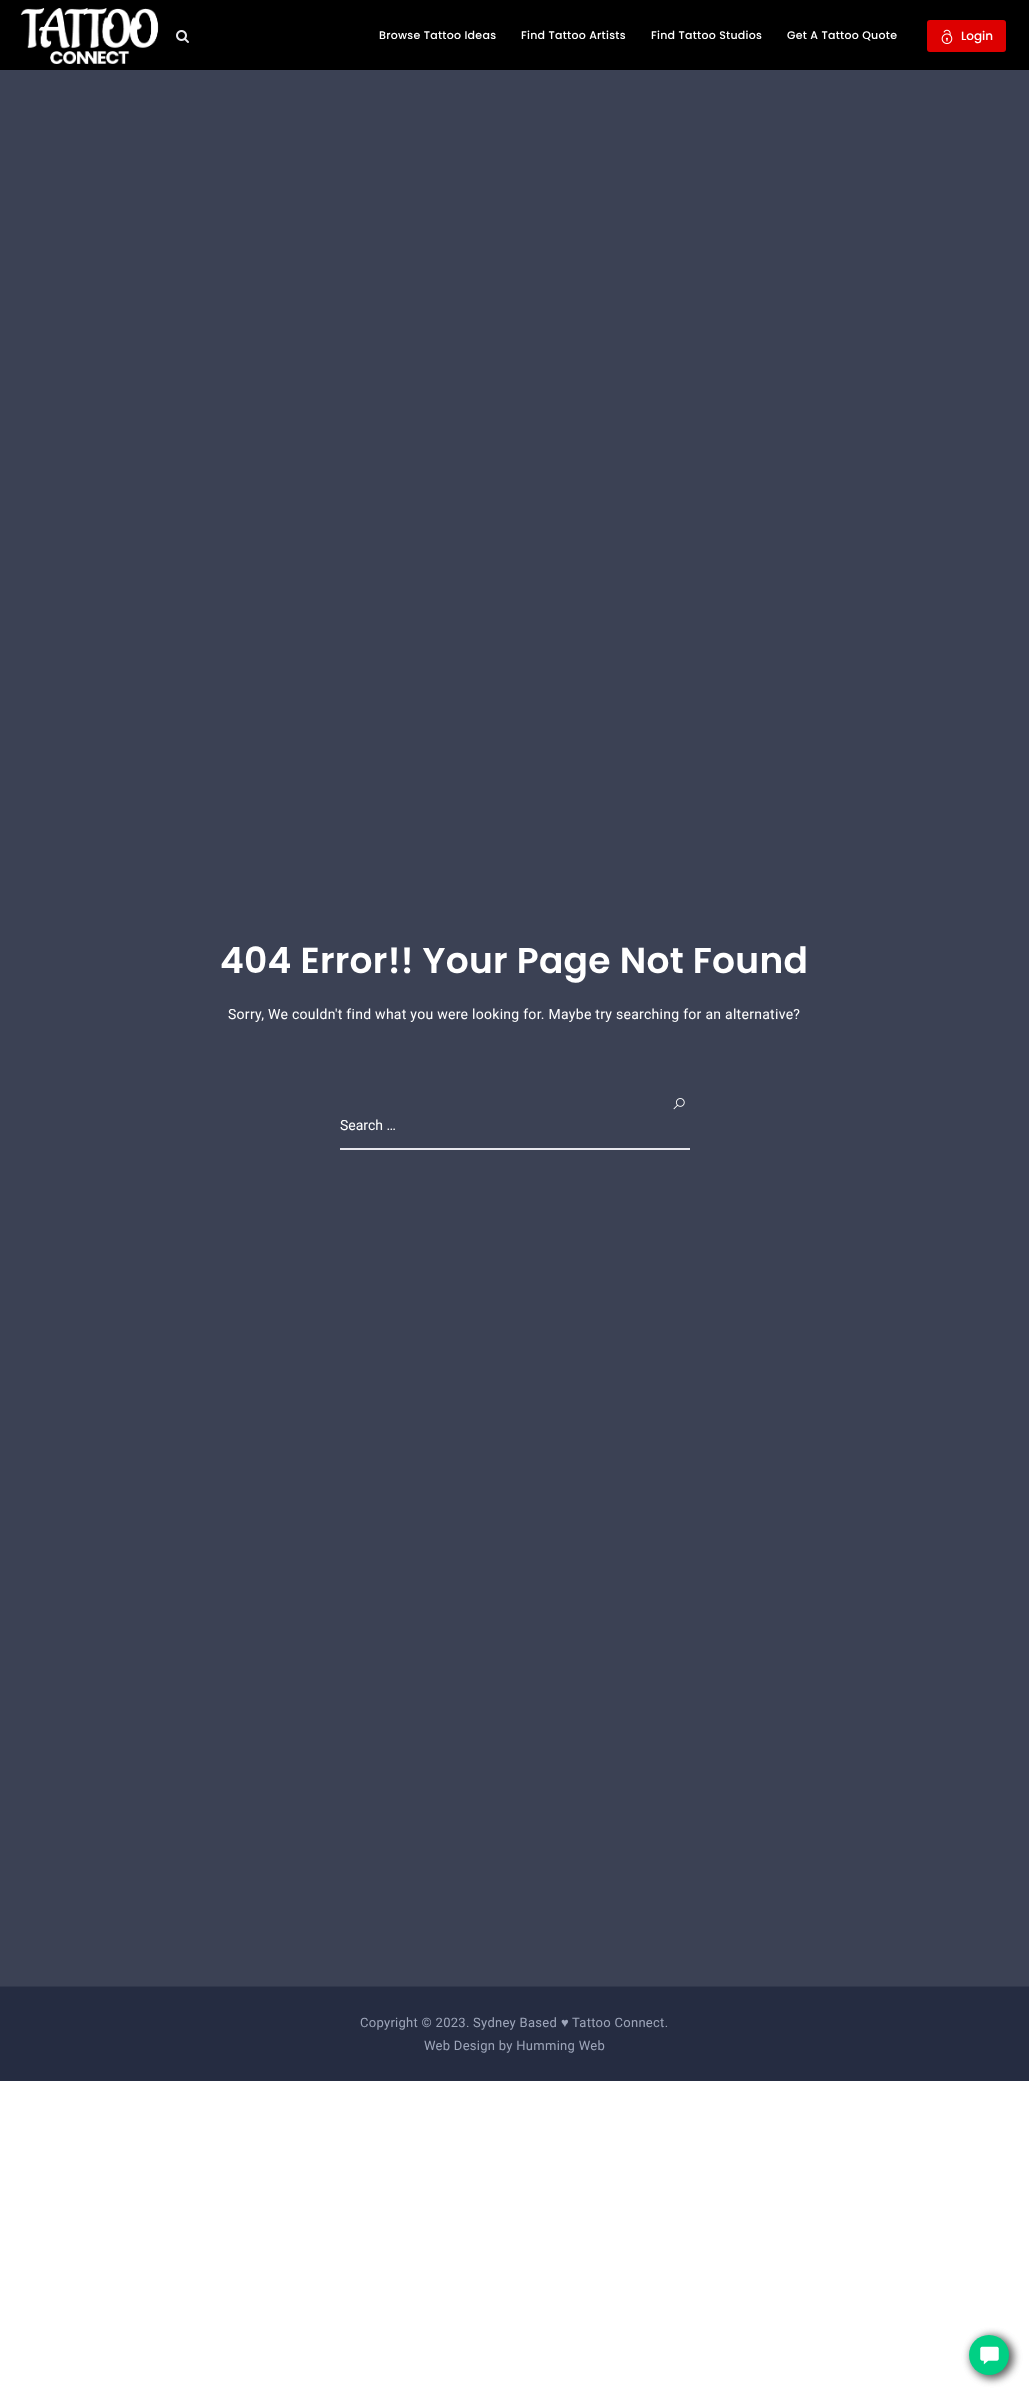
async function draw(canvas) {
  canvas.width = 1029
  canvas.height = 2395
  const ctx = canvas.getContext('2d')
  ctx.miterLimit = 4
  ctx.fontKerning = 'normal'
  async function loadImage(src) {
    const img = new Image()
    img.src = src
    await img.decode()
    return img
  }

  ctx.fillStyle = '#fff'
  ctx.fillRect(0, 0, 1029, 2395)
  ctx.fillStyle = '#000'
  ctx.fillRect(0, 0, 1029, 70)
  ctx.drawImage(await loadImage('image0.png'), 20, 8, 139, 56)
  ctx.drawImage(await loadImage('image1.png'), 176, 30, 13, 13)
  ctx.letterSpacing = '0.28px'
  ctx.font = '500 11px Poppins'
  ctx.fillStyle = '#fff'
  ctx.fillText('Browse Tattoo Ideas', 379, 39)
  ctx.fillText('Find Tattoo Artists', 521, 39)
  ctx.fillText('Find Tattoo Studios', 651, 39)
  ctx.fillText('Get A Tattoo Quote', 787, 39)
  ctx.fillStyle = '#d00'
  ctx.beginPath()
  ctx.roundRect(927, 20, 79, 32, 3)
  ctx.fill()
  ctx.drawImage(await loadImage('image2.png'), 941, 29, 12, 16)
  ctx.letterSpacing = '0px'
  ctx.font = '500 12px Poppins'
  ctx.fillStyle = '#fff'
  ctx.fillText('Login', 961, 40)
  ctx.fillStyle = '#3b4154'
  ctx.fillRect(0, 70, 1029, 1916)
  ctx.letterSpacing = '0.28px'
  ctx.font = '600 36px Poppins'
  ctx.fillStyle = '#fff'
  ctx.fillText('404 Error!! Your Page Not Found', 220, 973)
  ctx.font = '14px Roboto'
  ctx.fillText('Sorry, We couldn\'t find what you were looking for. Maybe try searching for an alternative?', 228, 1019)
  ctx.drawImage(await loadImage('image3.png'), 673, 1098, 12, 12)
  ctx.fillStyle = '#e7e7ed'
  ctx.fillRect(340, 1148, 350, 2)
  ctx.letterSpacing = '0px'
  ctx.fillStyle = '#fff'
  ctx.fillText('Search …', 340, 1130)
  ctx.fillStyle = '#252c41'
  ctx.fillRect(0, 1987, 1029, 94)
  ctx.fillStyle = '#30374b'
  ctx.fillRect(0, 1986, 1029, 1)
  ctx.letterSpacing = '0.28px'
  ctx.font = '13px Roboto'
  ctx.fillStyle = '#9ea6ba'
  ctx.fillText('Copyright © 2023. Sydney Based', 360, 2027)
  ctx.font = '13px Liberation Sans'
  ctx.fillText('♥', 561, 2027)
  ctx.font = '13px Roboto'
  ctx.fillText('Tattoo Connect.', 572, 2027)
  ctx.fillText('Web Design by Humming Web', 424, 2050)
  ctx.fillStyle = '#00000066'
  ctx.filter = 'blur(4.5px)'
  ctx.beginPath()
  ctx.roundRect(971, 2336, 42, 42, 21)
  ctx.fill()
  ctx.filter = 'none'
  ctx.filter = 'blur(4.5px)'
  ctx.beginPath()
  ctx.roundRect(971, 2336, 42, 42, 21)
  ctx.fill()
  ctx.filter = 'none'
  ctx.fillStyle = '#00d084'
  ctx.beginPath()
  ctx.arc(989, 2355, 20, 0, 2 * Math.PI)
  ctx.fill()
  ctx.drawImage(await loadImage('image4.png'), 980, 2346, 19, 19)
}

draw(document.querySelector('canvas'))
